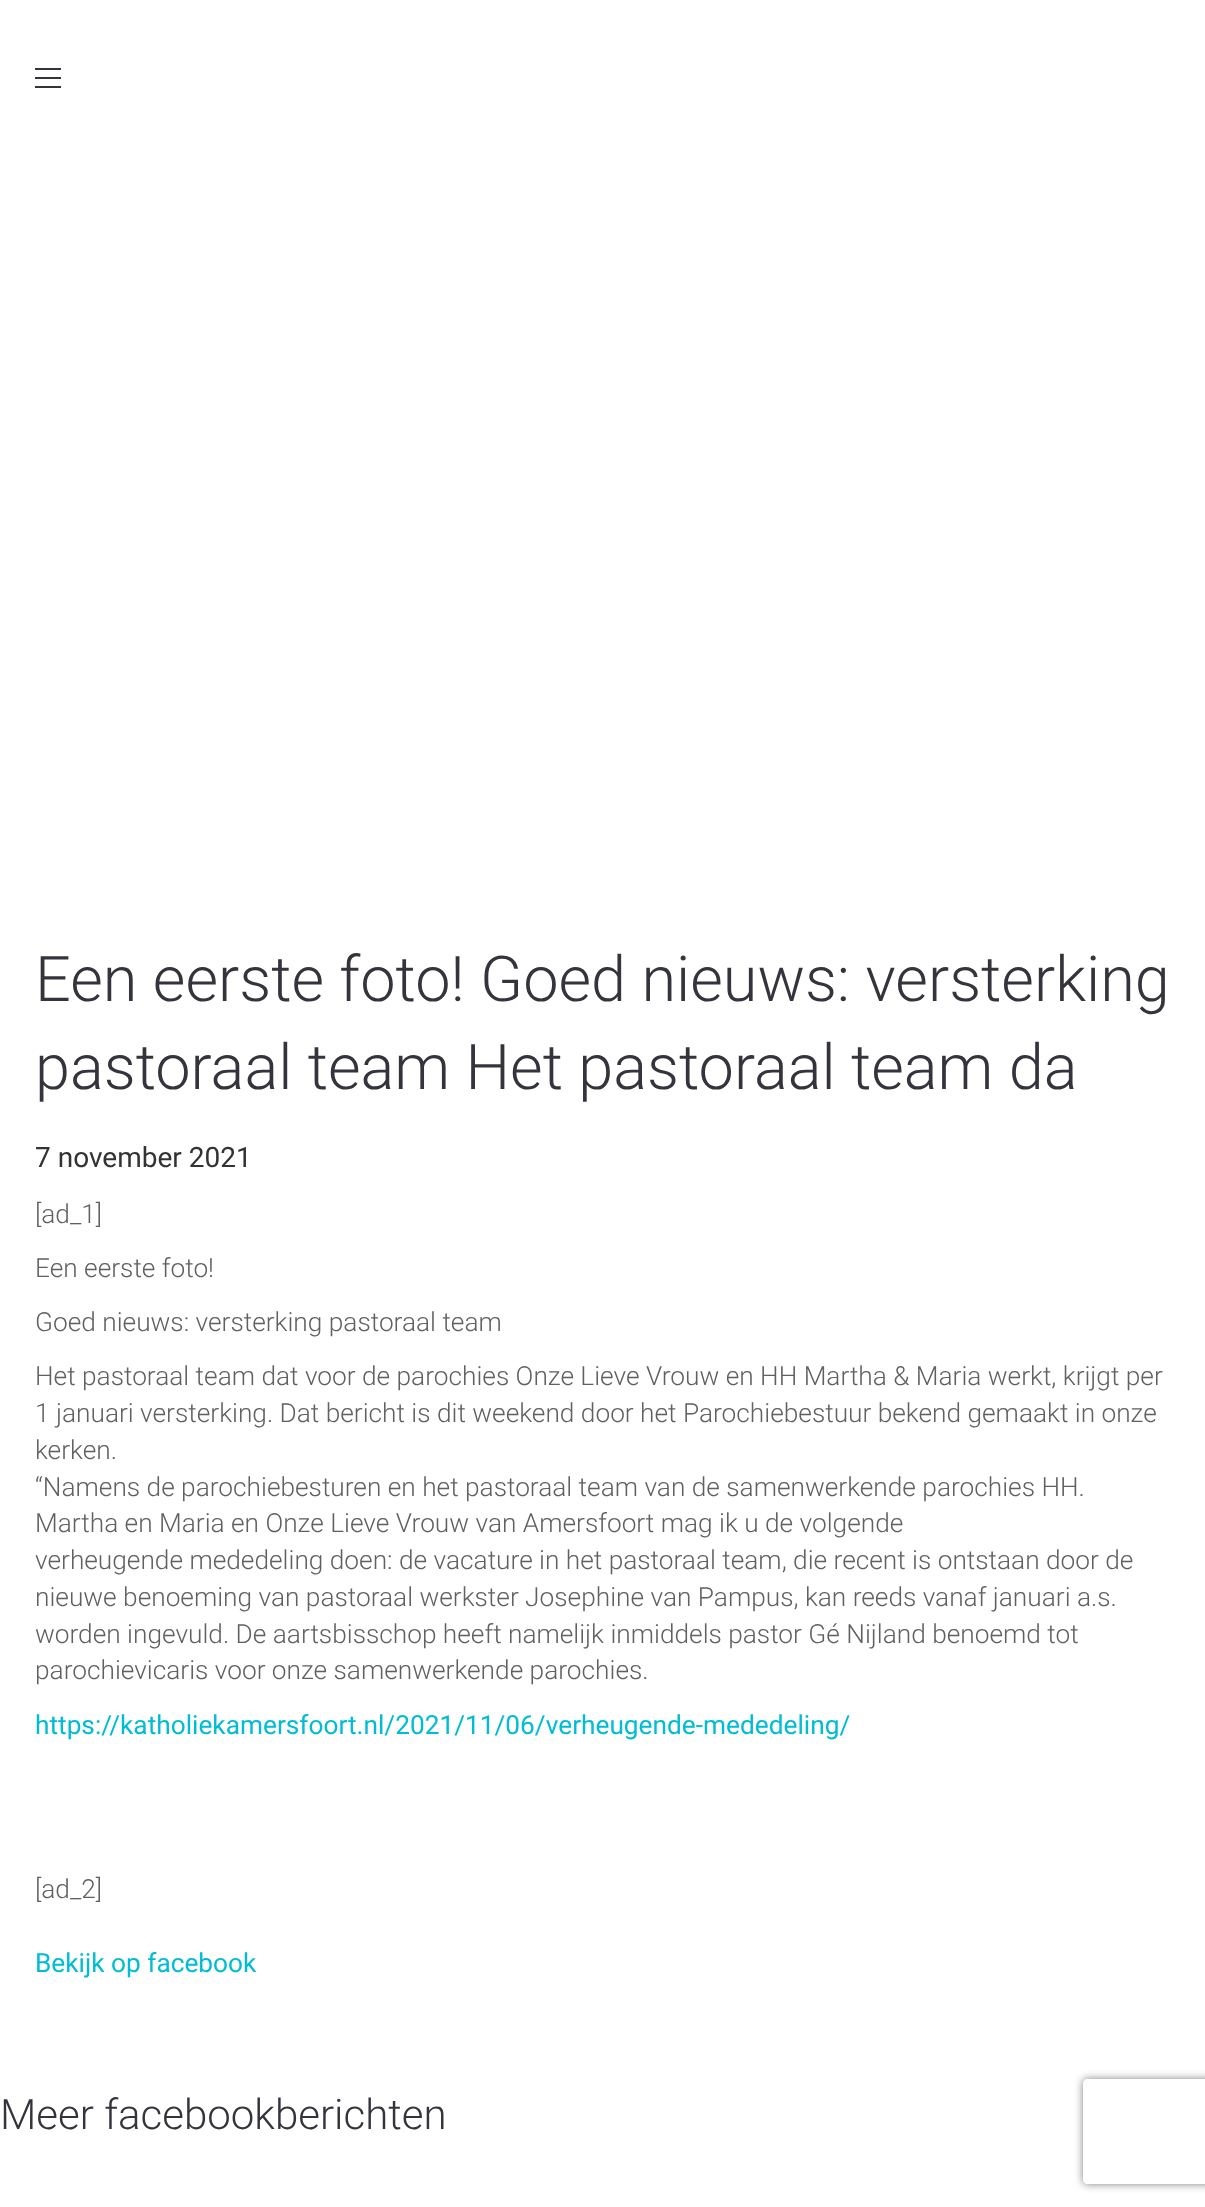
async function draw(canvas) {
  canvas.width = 1205
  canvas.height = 2207
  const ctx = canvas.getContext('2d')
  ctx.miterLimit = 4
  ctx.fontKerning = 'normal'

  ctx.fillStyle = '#fff'
  ctx.fillRect(0, 0, 1205, 2207)
  ctx.fillStyle = '#34343c'
  ctx.fillRect(35, 86, 26, 2)
  ctx.fillRect(35, 68, 26, 2)
  ctx.fillRect(35, 77, 26, 2)
  ctx.font = '300 63px Roboto'
  ctx.fillText('Een eerste foto! Goed nieuws: versterking', 35, 1001)
  ctx.fillText('pastoraal team Het pastoraal team da', 35, 1089)
  ctx.font = '28px Roboto'
  ctx.fillStyle = '#333'
  ctx.fillText('7 november 2021', 35, 1167)
  ctx.font = '300 26.25px Roboto'
  ctx.fillStyle = '#606060'
  ctx.fillText('[ad_1]', 35, 1223)
  ctx.fillText('Een eerste foto!', 35, 1277)
  ctx.fillText('Goed nieuws: versterking pastoraal team', 35, 1331)
  ctx.fillText('Het pastoraal team dat voor de parochies Onze Lieve Vrouw en HH Martha & Maria werkt, krijgt per', 35, 1385)
  ctx.fillText('1 januari versterking. Dat bericht is dit weekend door het Parochiebestuur bekend gemaakt in onze', 35, 1422)
  ctx.fillText('kerken.', 35, 1459)
  ctx.fillText('“Namens de parochiebesturen en het pastoraal team van de samenwerkende parochies HH.', 35, 1496)
  ctx.fillText('Martha en Maria en Onze Lieve Vrouw van Amersfoort mag ik u de volgende', 35, 1532)
  ctx.fillText('verheugende mededeling doen: de vacature in het pastoraal team, die recent is ontstaan door de', 35, 1569)
  ctx.fillText('nieuwe benoeming van pastoraal werkster Josephine van Pampus, kan reeds vanaf januari a.s.', 35, 1606)
  ctx.fillText('worden ingevuld. De aartsbisschop heeft namelijk inmiddels pastor Gé Nijland benoemd tot', 35, 1643)
  ctx.fillText('parochievicaris voor onze samenwerkende parochies.', 35, 1679)
  ctx.font = '26.25px Roboto'
  ctx.fillStyle = '#00bcd4'
  ctx.fillText('https://katholiekamersfoort.nl/2021/11/06/verheugende-mededeling/', 35, 1734)
  ctx.font = '300 26.25px Roboto'
  ctx.fillStyle = '#606060'
  ctx.fillText('[ad_2]', 35, 1898)
  ctx.font = '26.25px Roboto'
  ctx.fillStyle = '#00bcd4'
  ctx.fillText('Bekijk op facebook', 35, 1972)
  ctx.font = '300 42px Roboto'
  ctx.fillStyle = '#34343c'
  ctx.fillText('Meer facebookberichten', 0, 2129)
  ctx.save()
  ctx.beginPath()
  ctx.moveTo(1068, 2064)
  ctx.lineTo(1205, 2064)
  ctx.lineTo(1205, 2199)
  ctx.lineTo(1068, 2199)
  ctx.closePath()
  ctx.moveTo(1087, 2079)
  ctx.lineTo(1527, 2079)
  ctx.bezierCurveTo(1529, 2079, 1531, 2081, 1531, 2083)
  ctx.lineTo(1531, 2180)
  ctx.bezierCurveTo(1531, 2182, 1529, 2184, 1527, 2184)
  ctx.lineTo(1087, 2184)
  ctx.bezierCurveTo(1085, 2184, 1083, 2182, 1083, 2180)
  ctx.lineTo(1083, 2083)
  ctx.bezierCurveTo(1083, 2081, 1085, 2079, 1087, 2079)
  ctx.closePath()
  ctx.clip('evenodd')
  ctx.fillStyle = '#808080'
  ctx.filter = 'blur(4.5px)'
  ctx.beginPath()
  ctx.roundRect(1083, 2079, 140, 105, 4)
  ctx.fill()
  ctx.filter = 'none'
  ctx.restore()
}

draw(document.querySelector('canvas'))
